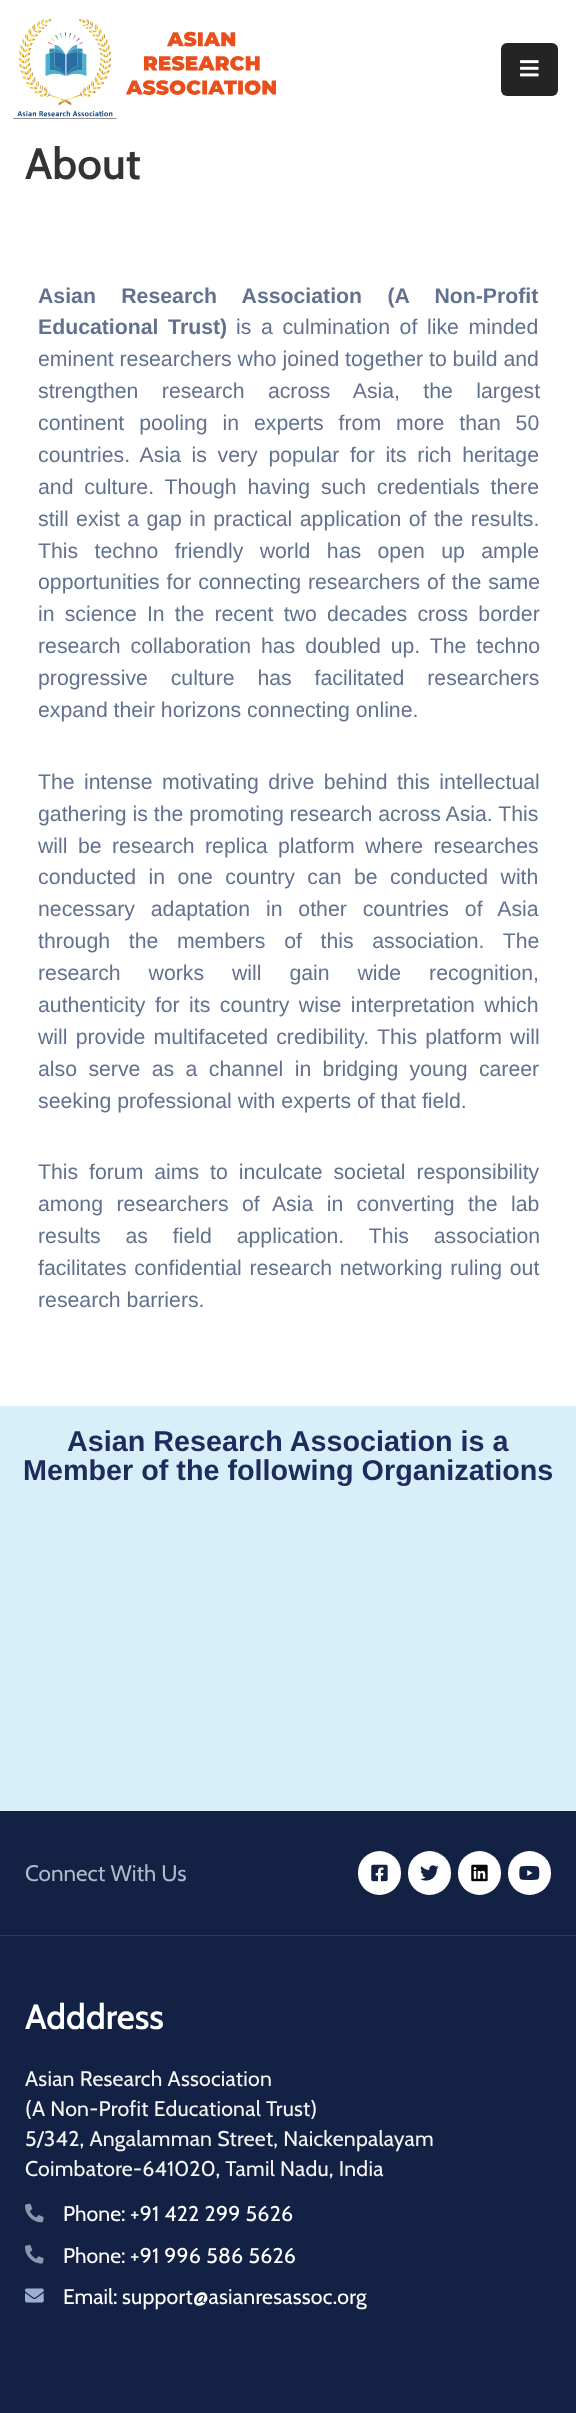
async function draw(canvas) {
  canvas.width = 576
  canvas.height = 2413
  const ctx = canvas.getContext('2d')
  ctx.miterLimit = 4
  ctx.fontKerning = 'normal'
  async function loadImage(src) {
    const img = new Image()
    img.src = src
    await img.decode()
    return img
  }

  ctx.fillStyle = '#fff'
  ctx.fillRect(0, 0, 576, 2413)
  ctx.drawImage(await loadImage('image0.png'), 13, 18, 263, 101)
  ctx.fillStyle = '#242424'
  ctx.beginPath()
  ctx.roundRect(501, 43, 57, 53, 6)
  ctx.fill()
  ctx.drawImage(await loadImage('image1.png'), 520, 60, 19, 17)
  ctx.font = '600 44px Cabin'
  ctx.fillStyle = '#333'
  ctx.fillText('About', 25, 179)
  ctx.wordSpacing = '19.5px'
  ctx.font = 'bold 21.25px Liberation Sans'
  ctx.fillStyle = '#62718d'
  ctx.fillText('Asian Research Association (A Non-Profit', 38, 303)
  ctx.wordSpacing = '3.75px'
  ctx.fillText('Educational Trust)', 38, 334)
  ctx.font = '21.25px Liberation Sans'
  ctx.fillText('is a culmination of like minded', 236, 334)
  ctx.wordSpacing = '0px'
  ctx.fillText('eminent researchers who joined together to build and', 38, 366)
  ctx.wordSpacing = '17.5px'
  ctx.fillText('strengthen research across Asia, the largest', 38, 398)
  ctx.wordSpacing = '9px'
  ctx.fillText('continent pooling in experts from more than 50', 38, 430)
  ctx.wordSpacing = '4.75px'
  ctx.fillText('countries. Asia is very popular for its rich heritage', 38, 462)
  ctx.wordSpacing = '5px'
  ctx.fillText('and culture. Though having such credentials there', 38, 494)
  ctx.wordSpacing = '1.5px'
  ctx.fillText('still exist a gap in practical application of the results.', 38, 526)
  ctx.wordSpacing = '10.5px'
  ctx.fillText('This techno friendly world has open up ample', 38, 558)
  ctx.wordSpacing = '1px'
  ctx.fillText('opportunities for connecting researchers of the same', 38, 589)
  ctx.wordSpacing = '4.25px'
  ctx.fillText('in science In the recent two decades cross border', 38, 621)
  ctx.wordSpacing = '4px'
  ctx.fillText('research collaboration has doubled up. The techno', 38, 653)
  ctx.wordSpacing = '17px'
  ctx.fillText('progressive culture has facilitated researchers', 38, 685)
  ctx.wordSpacing = '0px'
  ctx.fillText('expand their horizons connecting online.', 38, 717)
  ctx.wordSpacing = '3.5px'
  ctx.fillText('The intense motivating drive behind this intellectual', 38, 789)
  ctx.wordSpacing = '0px'
  ctx.fillText('gathering is the promoting research across Asia. This', 38, 821)
  ctx.wordSpacing = '4.5px'
  ctx.fillText('will be research replica platform where researches', 38, 853)
  ctx.wordSpacing = '6.5px'
  ctx.fillText('conducted in one country can be conducted with', 38, 884)
  ctx.wordSpacing = '10px'
  ctx.fillText('necessary adaptation in other countries of Asia', 38, 916)
  ctx.wordSpacing = '12.75px'
  ctx.fillText('through the members of this association. The', 38, 948)
  ctx.wordSpacing = '22px'
  ctx.fillText('research works will gain wide recognition,', 38, 980)
  ctx.wordSpacing = '3.5px'
  ctx.fillText('authenticity for its country wise interpretation which', 38, 1012)
  ctx.wordSpacing = '2.25px'
  ctx.fillText('will provide multifaceted credibility. This platform will', 38, 1044)
  ctx.wordSpacing = '5.5px'
  ctx.fillText('also serve as a channel in bridging young career', 38, 1076)
  ctx.wordSpacing = '0px'
  ctx.fillText('seeking professional with experts of that field.', 38, 1108)
  ctx.wordSpacing = '5px'
  ctx.fillText('This forum aims to inculcate societal responsibility', 38, 1179)
  ctx.wordSpacing = '7.5px'
  ctx.fillText('among researchers of Asia in converting the lab', 38, 1211)
  ctx.wordSpacing = '19px'
  ctx.fillText('results as field application. This association', 38, 1243)
  ctx.wordSpacing = '1.75px'
  ctx.fillText('facilitates confidential research networking ruling out', 38, 1275)
  ctx.wordSpacing = '0px'
  ctx.fillText('research barriers.', 38, 1307)
  ctx.fillStyle = '#d6eff8'
  ctx.fillRect(0, 1406, 576, 405)
  ctx.font = 'bold 28.75px Liberation Sans'
  ctx.fillStyle = '#202b5d'
  ctx.fillText('Asian Research Association is a', 67, 1451)
  ctx.fillText('Member of the following Organizations', 23, 1480)
  ctx.fillStyle = '#132244'
  ctx.fillRect(0, 1811, 576, 124)
  ctx.fillStyle = '#263a65'
  ctx.fillRect(0, 1935, 576, 1)
  ctx.font = '22.5px Cabin'
  ctx.fillStyle = '#b0b8ca'
  ctx.fillText('Connect With Us', 25, 1881)
  ctx.fillStyle = '#fff'
  ctx.beginPath()
  ctx.roundRect(358, 1851, 43, 44, 21.5)
  ctx.fill()
  ctx.drawImage(await loadImage('image2.png'), 371, 1864, 17, 18)
  ctx.beginPath()
  ctx.roundRect(408, 1851, 43, 44, 21.5)
  ctx.fill()
  ctx.drawImage(await loadImage('image3.png'), 420, 1865, 19, 16)
  ctx.beginPath()
  ctx.roundRect(458, 1851, 43, 44, 21.5)
  ctx.fill()
  ctx.drawImage(await loadImage('image4.png'), 471, 1864, 17, 18)
  ctx.beginPath()
  ctx.roundRect(508, 1851, 43, 44, 21.5)
  ctx.fill()
  ctx.drawImage(await loadImage('image5.png'), 519, 1865, 21, 15)
  ctx.fillStyle = '#132244'
  ctx.fillRect(0, 1936, 576, 477)
  ctx.font = '600 35px Cabin'
  ctx.fillStyle = '#fff'
  ctx.fillText('Adddress', 25, 2029)
  ctx.letterSpacing = '0.25px'
  ctx.font = '21.25px Cabin'
  ctx.fillStyle = '#f6f6f6'
  ctx.fillText('Asian Research Association', 25, 2086)
  ctx.fillText('(A Non-Profit Educational Trust)', 25, 2116)
  ctx.fillText('5/342, Angalamman Street, Naickenpalayam', 25, 2146)
  ctx.fillText('Coimbatore-641020, Tamil Nadu, India', 25, 2176)
  ctx.drawImage(await loadImage('image6.png'), 25, 2203, 19, 20)
  ctx.letterSpacing = '0px'
  ctx.fillStyle = '#fff'
  ctx.fillText('Phone:', 63, 2221)
  ctx.letterSpacing = '0.25px'
  ctx.fillText('+91 422 299 5626', 130, 2221)
  ctx.drawImage(await loadImage('image7.png'), 25, 2244, 19, 20)
  ctx.letterSpacing = '0px'
  ctx.fillText('Phone:', 63, 2263)
  ctx.letterSpacing = '0.25px'
  ctx.fillText('+91 996 586 5626', 130, 2263)
  ctx.drawImage(await loadImage('image8.png'), 25, 2288, 19, 15)
  ctx.letterSpacing = '0px'
  ctx.fillText('Email:', 63, 2304)
  ctx.letterSpacing = '0.25px'
  ctx.fillText('support@asianresassoc.org', 122, 2304)
}

draw(document.querySelector('canvas'))
